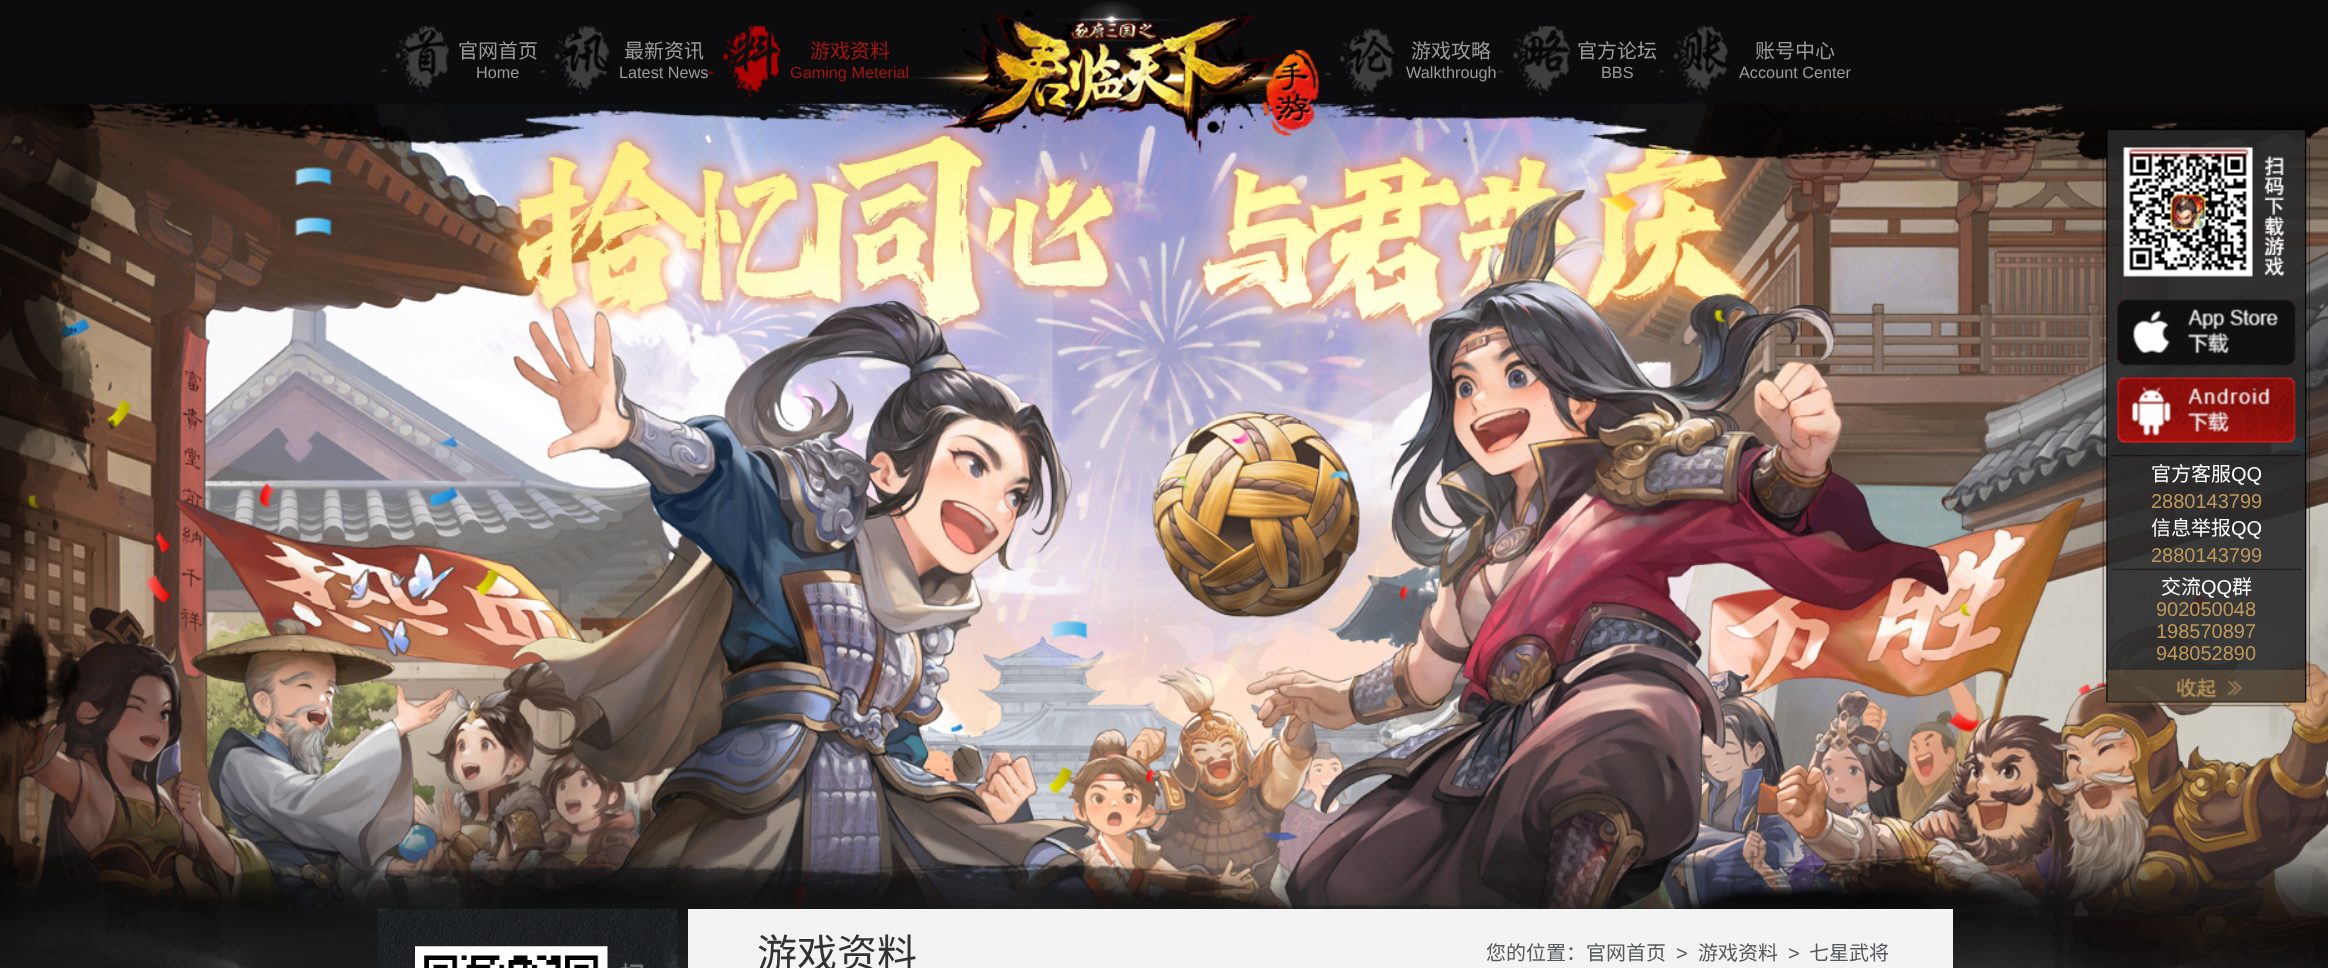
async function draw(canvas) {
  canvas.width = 2328
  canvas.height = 968
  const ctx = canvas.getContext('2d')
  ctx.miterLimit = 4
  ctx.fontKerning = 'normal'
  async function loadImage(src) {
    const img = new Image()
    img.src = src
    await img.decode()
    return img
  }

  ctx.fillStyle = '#fff'
  ctx.fillRect(0, 0, 2328, 968)
  ctx.drawImage(await loadImage('image13.png'), 0, 0, 2328, 968)
  ctx.drawImage(await loadImage('image0.png'), 380, 26, 69, 68)
  ctx.font = '20px Noto Sans CJK SC'
  ctx.fillStyle = '#9a9b9b'
  ctx.fillText('官网首页', 458, 58)
  ctx.font = '16.25px Liberation Sans'
  ctx.fillText('Home', 476, 78)
  ctx.drawImage(await loadImage('image1.png'), 539, 26, 72, 69)
  ctx.font = '20px Noto Sans CJK SC'
  ctx.fillText('最新资讯', 624, 58)
  ctx.font = '16.25px Liberation Sans'
  ctx.fillText('Latest News', 619, 78)
  ctx.drawImage(await loadImage('image2.png'), 708, 26, 73, 89)
  ctx.font = '20px Noto Sans CJK SC'
  ctx.fillStyle = '#a1160e'
  ctx.fillText('游戏资料', 810, 58)
  ctx.font = '16.25px Liberation Sans'
  ctx.fillText('Gaming Meterial', 790, 78)
  ctx.drawImage(await loadImage('image3.png'), 909, 1, 410, 153)
  ctx.drawImage(await loadImage('image4.png'), 1324, 28, 73, 86)
  ctx.font = '20px Noto Sans CJK SC'
  ctx.fillStyle = '#9a9b9b'
  ctx.fillText('游戏攻略', 1411, 58)
  ctx.font = '16.25px Liberation Sans'
  ctx.fillText('Walkthrough', 1406, 78)
  ctx.drawImage(await loadImage('image5.png'), 1496, 26, 74, 71)
  ctx.font = '20px Noto Sans CJK SC'
  ctx.fillText('官方论坛', 1577, 58)
  ctx.font = '16.25px Liberation Sans'
  ctx.fillText('BBS', 1601, 78)
  ctx.drawImage(await loadImage('image6.png'), 1657, 26, 73, 69)
  ctx.font = '20px Noto Sans CJK SC'
  ctx.fillText('账号中心', 1755, 58)
  ctx.font = '16.25px Liberation Sans'
  ctx.fillText('Account Center', 1739, 78)
  ctx.drawImage(await loadImage('image7.png'), 2102, 125, 208, 582)
  ctx.drawImage(await loadImage('image8.png'), 2123, 147, 130, 130)
  ctx.drawImage(await loadImage('image9.png'), 2127, 147, 123, 11)
  ctx.drawImage(await loadImage('image10.png'), 2117, 299, 179, 67)
  ctx.drawImage(await loadImage('image11.png'), 2117, 377, 179, 66)
  ctx.font = '20px Noto Sans CJK SC'
  ctx.fillStyle = '#fff'
  ctx.fillText('官方客服', 2151, 481)
  ctx.font = '20px Liberation Sans'
  ctx.fillText('QQ', 2231, 481)
  ctx.fillStyle = '#c0985b'
  ctx.fillText('2880143799', 2151, 508)
  ctx.font = '20px Noto Sans CJK SC'
  ctx.fillStyle = '#fff'
  ctx.fillText('信息举报', 2151, 535)
  ctx.font = '20px Liberation Sans'
  ctx.fillText('QQ', 2231, 535)
  ctx.fillStyle = '#c0985b'
  ctx.fillText('2880143799', 2151, 562)
  ctx.font = '20px Noto Sans CJK SC'
  ctx.fillStyle = '#fff'
  ctx.fillText('交流', 2161, 594)
  ctx.font = '20px Liberation Sans'
  ctx.fillText('QQ', 2201, 594)
  ctx.font = '20px Noto Sans CJK SC'
  ctx.fillText('群', 2232, 594)
  ctx.font = '20px Liberation Sans'
  ctx.fillStyle = '#c0985b'
  ctx.fillText('902050048', 2156, 616)
  ctx.fillText('198570897', 2156, 638)
  ctx.fillText('948052890', 2156, 660)
  ctx.drawImage(await loadImage('image12.png'), 2107, 670, 198, 37)
  ctx.drawImage(await loadImage('image14.png'), 377, 908, 301, 60)
  ctx.drawImage(await loadImage('image15.png'), 415, 946, 193, 22)
  ctx.fillStyle = '#f3f3f3'
  ctx.fillRect(688, 909, 1265, 59)
  ctx.font = '40px Noto Sans CJK SC'
  ctx.fillStyle = '#303234'
  ctx.fillText('游戏资料', 757, 968)
  ctx.font = '20px Noto Sans CJK SC'
  ctx.fillStyle = '#54595d'
  ctx.fillText('您的位置：官网首页', 1486, 960)
  ctx.font = '20px Liberation Sans'
  ctx.fillText('>', 1676, 960)
  ctx.font = '20px Noto Sans CJK SC'
  ctx.fillText('游戏资料', 1698, 960)
  ctx.font = '20px Liberation Sans'
  ctx.fillText('>', 1788, 960)
  ctx.font = '20px Noto Sans CJK SC'
  ctx.fillText('七星武将', 1809, 960)
}

draw(document.querySelector('canvas'))
